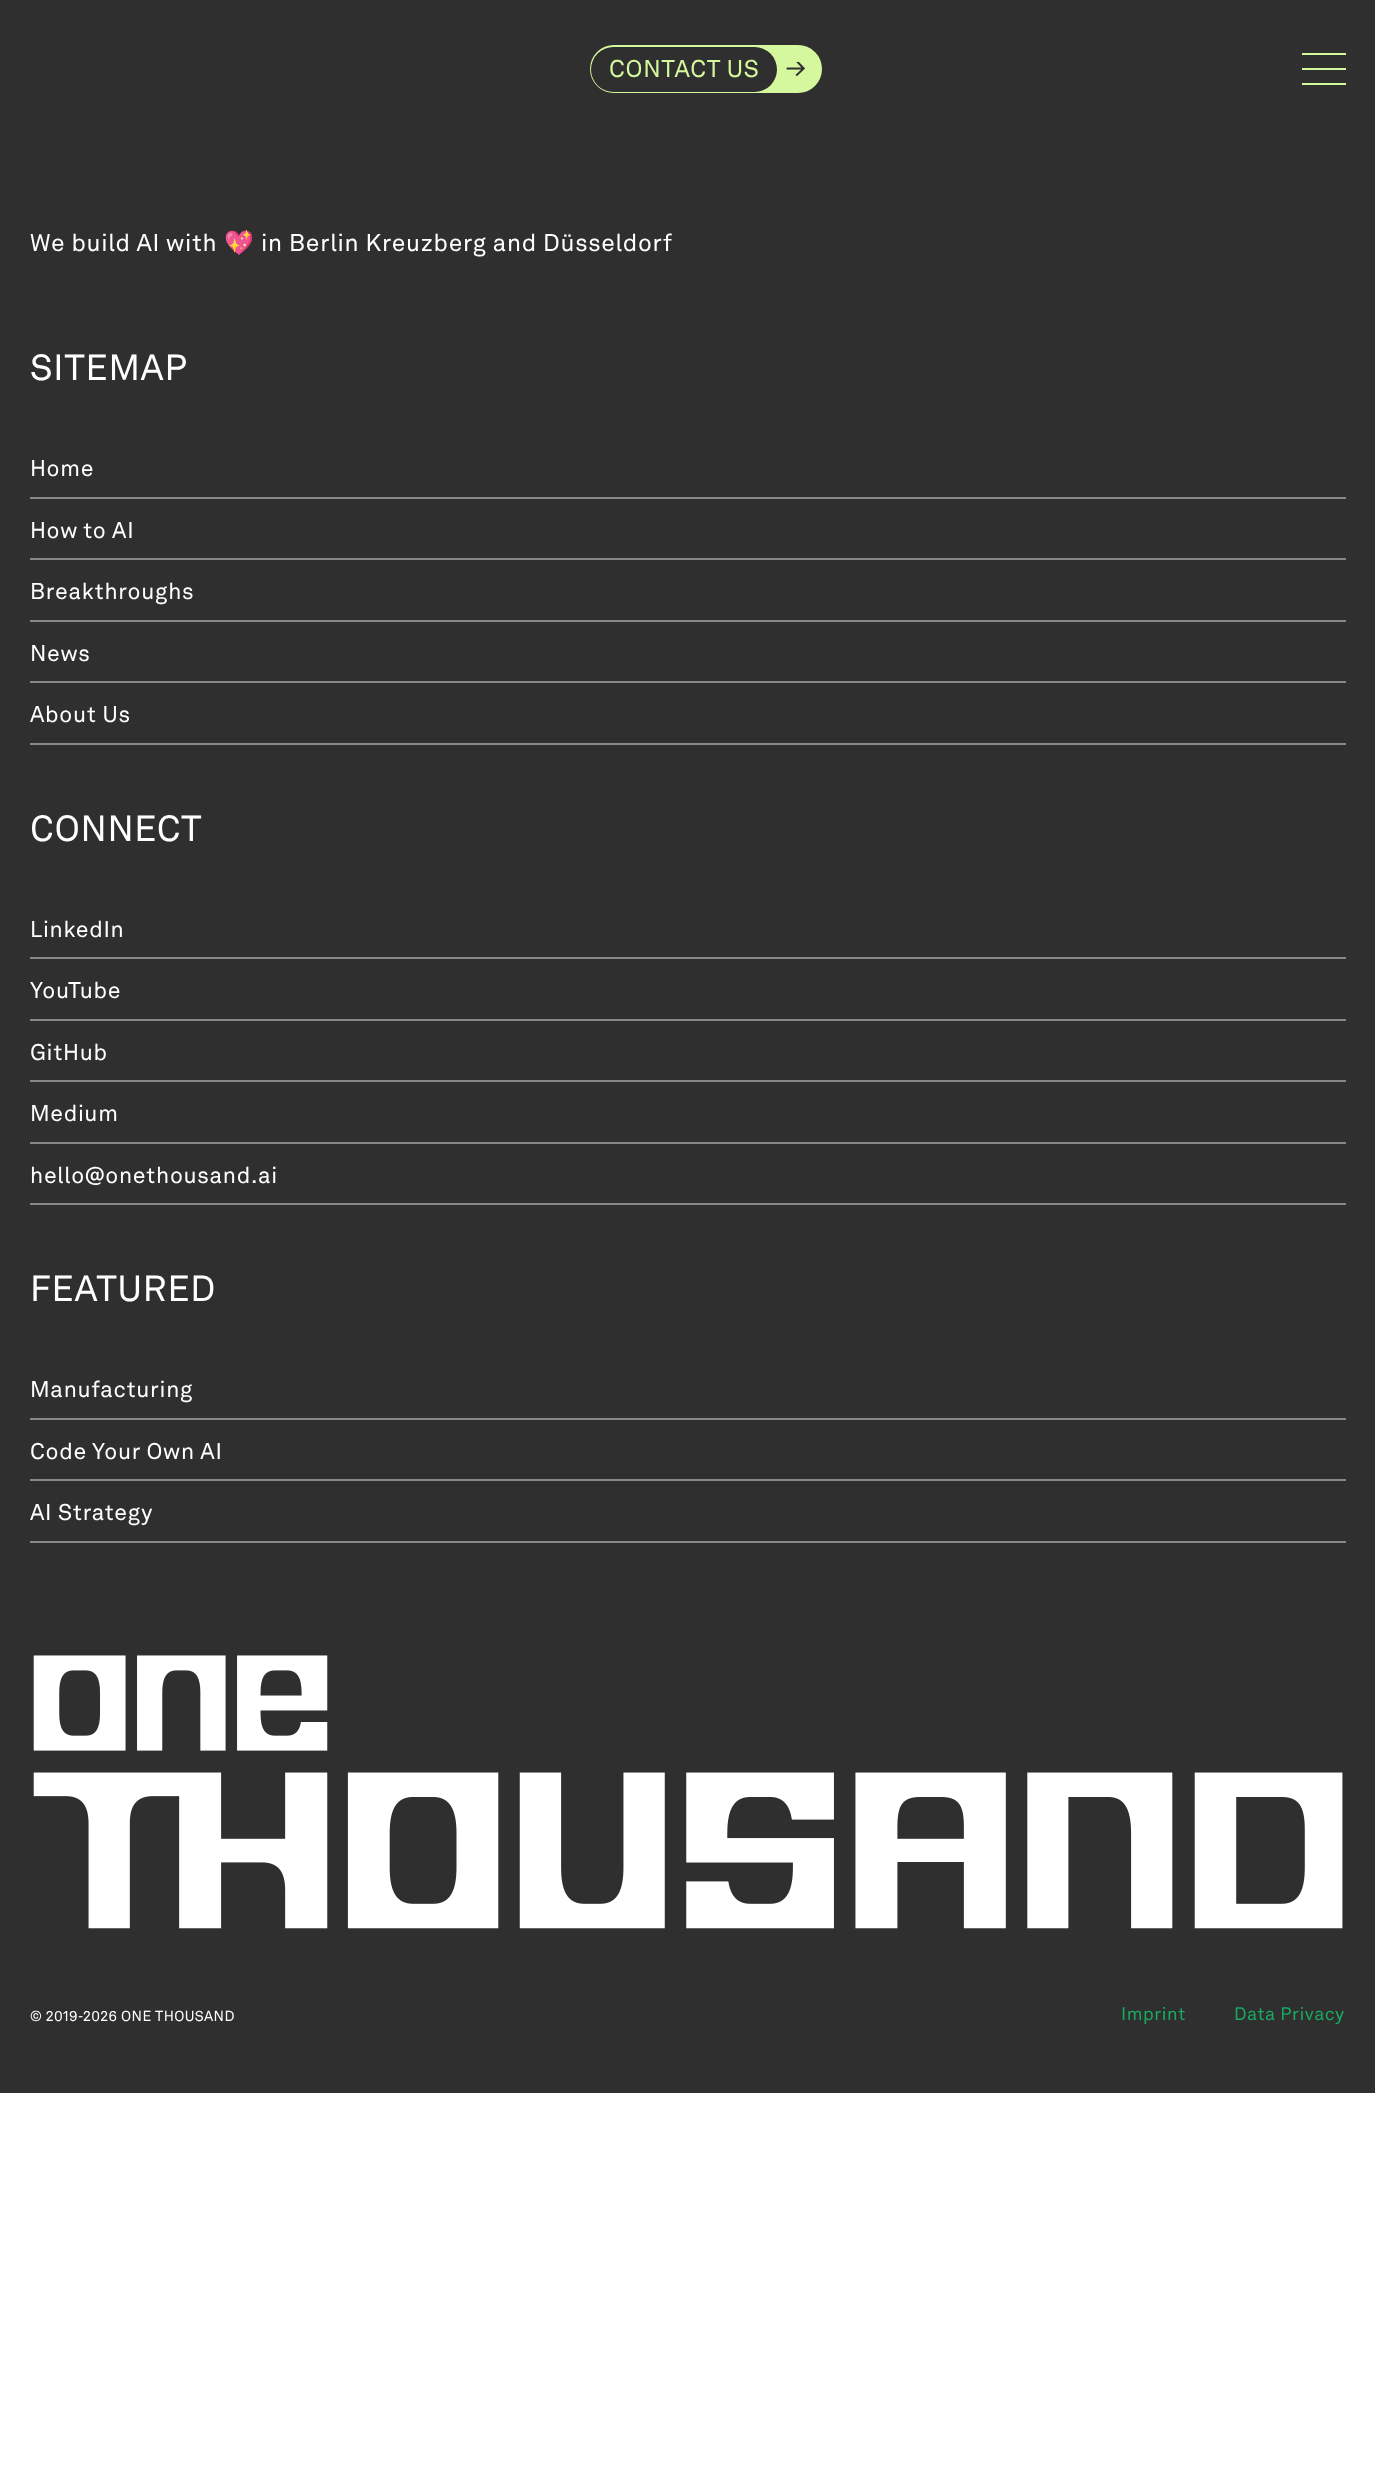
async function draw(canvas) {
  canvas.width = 1375
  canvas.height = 2465
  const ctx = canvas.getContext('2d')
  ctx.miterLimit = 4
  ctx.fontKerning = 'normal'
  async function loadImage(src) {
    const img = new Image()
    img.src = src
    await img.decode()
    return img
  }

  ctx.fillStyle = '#fff'
  ctx.fillRect(0, 0, 1375, 2465)
  ctx.fillStyle = '#2f2f2f'
  ctx.fillRect(0, 0, 1375, 2093)
  ctx.fillStyle = '#d5f89e'
  ctx.beginPath()
  ctx.roundRect(590, 45, 232, 48, 24)
  ctx.fill()
  ctx.fillStyle = '#2f2f2f'
  ctx.beginPath()
  ctx.roundRect(591, 47, 186, 45, 22.5)
  ctx.fill()
  ctx.letterSpacing = '0.7px'
  ctx.font = '24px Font'
  ctx.fillStyle = '#d5f89e'
  ctx.fillText('CONTACT US', 609, 77)
  ctx.drawImage(await loadImage('image0.png'), 786, 62, 19, 15)
  ctx.fillRect(1302, 53, 44, 2)
  ctx.fillRect(1302, 68, 44, 2)
  ctx.fillRect(1302, 83, 44, 2)
  ctx.fillStyle = '#fff'
  ctx.fillText('We build AI with', 30, 251)
  ctx.font = '24px Noto Color Emoji'
  ctx.fillText('💖', 224, 251)
  ctx.font = '24px Font'
  ctx.fillText('in Berlin Kreuzberg and Düsseldorf', 261, 251)
  ctx.font = '36px Font'
  ctx.fillText('SITEMAP', 30, 380)
  ctx.fillStyle = '#888'
  ctx.fillRect(30, 497, 1316, 2)
  ctx.font = '22.5px Font'
  ctx.fillStyle = '#fff'
  ctx.fillText('Home', 30, 476)
  ctx.fillStyle = '#888'
  ctx.fillRect(30, 558, 1316, 2)
  ctx.fillStyle = '#fff'
  ctx.fillText('How to AI', 30, 538)
  ctx.fillStyle = '#888'
  ctx.fillRect(30, 620, 1316, 2)
  ctx.fillStyle = '#fff'
  ctx.fillText('Breakthroughs', 30, 599)
  ctx.fillStyle = '#888'
  ctx.fillRect(30, 681, 1316, 2)
  ctx.fillStyle = '#fff'
  ctx.fillText('News', 30, 661)
  ctx.fillStyle = '#888'
  ctx.fillRect(30, 743, 1316, 2)
  ctx.fillStyle = '#fff'
  ctx.fillText('About Us', 30, 722)
  ctx.font = '36px Font'
  ctx.fillText('CONNECT', 30, 841)
  ctx.fillStyle = '#888'
  ctx.fillRect(30, 957, 1316, 2)
  ctx.font = '22.5px Font'
  ctx.fillStyle = '#fff'
  ctx.fillText('LinkedIn', 30, 937)
  ctx.fillStyle = '#888'
  ctx.fillRect(30, 1019, 1316, 2)
  ctx.fillStyle = '#fff'
  ctx.fillText('YouTube', 30, 998)
  ctx.fillStyle = '#888'
  ctx.fillRect(30, 1080, 1316, 2)
  ctx.fillStyle = '#fff'
  ctx.fillText('GitHub', 30, 1060)
  ctx.fillStyle = '#888'
  ctx.fillRect(30, 1142, 1316, 2)
  ctx.fillStyle = '#fff'
  ctx.fillText('Medium', 30, 1121)
  ctx.fillStyle = '#888'
  ctx.fillRect(30, 1203, 1316, 2)
  ctx.fillStyle = '#fff'
  ctx.fillText('hello@onethousand.ai', 30, 1183)
  ctx.font = '36px Font'
  ctx.fillText('FEATURED', 30, 1301)
  ctx.fillStyle = '#888'
  ctx.fillRect(30, 1418, 1316, 2)
  ctx.font = '22.5px Font'
  ctx.fillStyle = '#fff'
  ctx.fillText('Manufacturing', 30, 1397)
  ctx.fillStyle = '#888'
  ctx.fillRect(30, 1479, 1316, 2)
  ctx.fillStyle = '#fff'
  ctx.fillText('Code Your Own AI', 30, 1459)
  ctx.fillStyle = '#888'
  ctx.fillRect(30, 1541, 1316, 2)
  ctx.fillStyle = '#fff'
  ctx.fillText('AI Strategy', 30, 1520)
  ctx.drawImage(await loadImage('image1.png'), 33, 1655, 1310, 274)
  ctx.letterSpacing = '0.4px'
  ctx.font = '14.3px Font'
  ctx.fillText('© 2019-2026 ONE THOUSAND', 30, 2021)
  ctx.letterSpacing = '0.5px'
  ctx.font = '18px Font'
  ctx.fillStyle = '#19a960'
  ctx.fillText('Imprint', 1121, 2020)
  ctx.fillText('Data Privacy', 1234, 2020)
}

draw(document.querySelector('canvas'))
